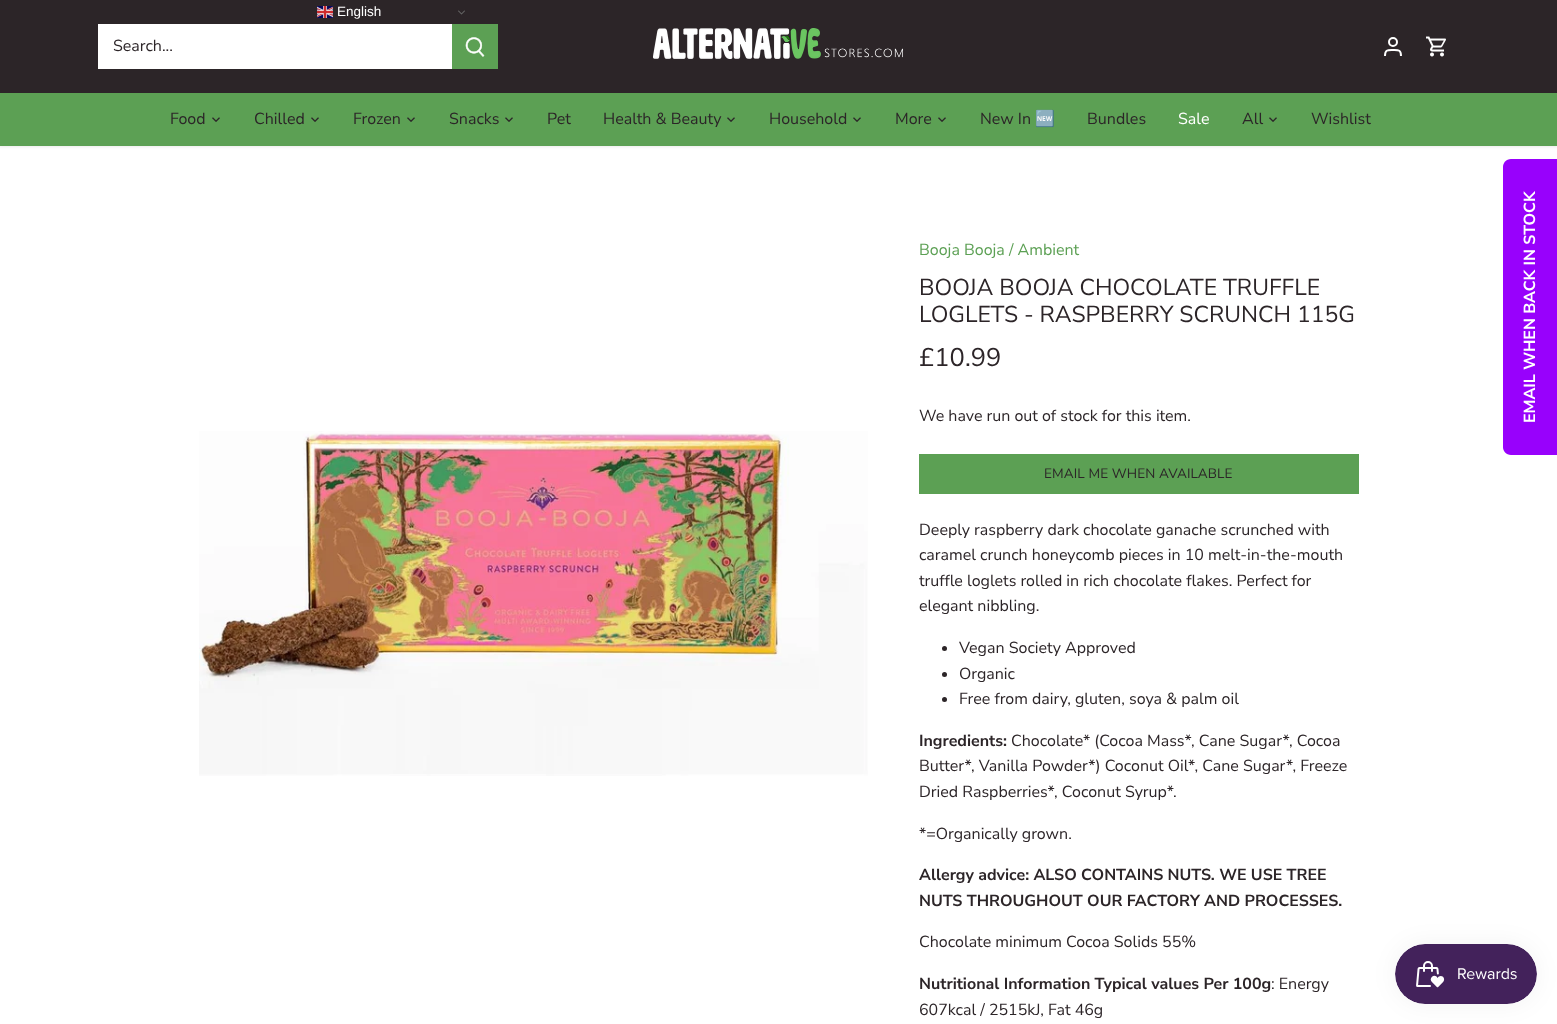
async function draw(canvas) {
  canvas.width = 1557
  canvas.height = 1024
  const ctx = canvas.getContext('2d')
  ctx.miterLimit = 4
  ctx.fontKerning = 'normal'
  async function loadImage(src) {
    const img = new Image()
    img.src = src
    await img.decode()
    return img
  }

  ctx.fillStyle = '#fff'
  ctx.fillRect(0, 0, 1557, 1024)
  ctx.fillStyle = '#00000014'
  ctx.filter = 'blur(1.5px)'
  ctx.beginPath()
  ctx.rect(-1, -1, 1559, 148)
  ctx.fill()
  ctx.filter = 'none'
  ctx.fillStyle = '#2c2528'
  ctx.fillRect(0, 0, 1557, 93)
  ctx.drawImage(await loadImage('image0.png'), 317, 6, 16, 12)
  ctx.font = '13.5px Liberation Sans'
  ctx.fillStyle = '#fff'
  ctx.fillText('English', 337, 16)
  ctx.drawImage(await loadImage('image1.png'), 458, 10, 7, 5)
  ctx.fillStyle = '#5ca054'
  ctx.fillRect(0, 93, 1557, 53)
  ctx.fillStyle = '#fff'
  ctx.fillRect(98, 24, 354, 45)
  ctx.font = '16px Nunito Sans'
  ctx.fillStyle = '#2c2528'
  ctx.fillText('Search...', 113, 51)
  ctx.fillStyle = '#5ca054'
  ctx.fillRect(452, 24, 46, 45)
  ctx.drawImage(await loadImage('image2.png'), 465, 37, 20, 20)
  ctx.drawImage(await loadImage('image3.png'), 653, 28, 250, 31)
  ctx.beginPath()
  ctx.arc(1393, 42, 4, 0, 2 * Math.PI)
  ctx.strokeStyle = '#fff'
  ctx.lineWidth = 2
  ctx.stroke()
  ctx.beginPath()
  ctx.moveTo(1401, 56)
  ctx.bezierCurveTo(1401, 49.5, 1398.5, 50, 1393, 50)
  ctx.bezierCurveTo(1387.5, 50, 1385, 49.5, 1385, 56)
  ctx.stroke()
  ctx.drawImage(await loadImage('image4.png'), 1426, 36, 20, 21)
  ctx.fillStyle = '#2c2528'
  ctx.fillText('Food', 170, 124)
  ctx.drawImage(await loadImage('image5.png'), 212, 117, 8, 5)
  ctx.fillText('Chilled', 254, 124)
  ctx.drawImage(await loadImage('image5.png'), 311, 117, 8, 5)
  ctx.fillText('Frozen', 353, 124)
  ctx.drawImage(await loadImage('image5.png'), 407, 117, 8, 5)
  ctx.fillText('Snacks', 449, 124)
  ctx.drawImage(await loadImage('image5.png'), 505, 117, 8, 5)
  ctx.fillText('Pet', 547, 124)
  ctx.fillText('Health & Beauty', 603, 124)
  ctx.drawImage(await loadImage('image5.png'), 727, 117, 8, 5)
  ctx.fillText('Household', 769, 124)
  ctx.drawImage(await loadImage('image5.png'), 853, 117, 8, 5)
  ctx.fillText('More', 895, 124)
  ctx.drawImage(await loadImage('image5.png'), 938, 117, 8, 5)
  ctx.fillText('New In', 980, 124)
  ctx.font = '16px Noto Color Emoji'
  ctx.fillText('🆕', 1035, 124)
  ctx.font = '16px Nunito Sans'
  ctx.fillText('Bundles', 1087, 124)
  ctx.fillStyle = '#fff'
  ctx.fillText('Sale', 1178, 124)
  ctx.fillStyle = '#2c2528'
  ctx.fillText('All', 1242, 124)
  ctx.drawImage(await loadImage('image5.png'), 1269, 117, 8, 5)
  ctx.fillText('Wishlist', 1311, 124)
  ctx.drawImage(await loadImage('image6.png'), 199, 431, 669, 345)
  ctx.fillStyle = '#5ca054'
  ctx.fillText('Booja Booja / Ambient', 919, 255)
  ctx.font = '23px Nunito Sans'
  ctx.fillStyle = '#2c2528'
  ctx.fillText('BOOJA BOOJA CHOCOLATE TRUFFLE', 919, 295)
  ctx.fillText('LOGLETS - RASPBERRY SCRUNCH 115G', 919, 322)
  ctx.font = '25.5px Nunito Sans'
  ctx.fillText('£10.99', 919, 366)
  ctx.font = '16px Nunito Sans'
  ctx.fillText('We have run out of stock for this item.', 919, 421)
  ctx.fillStyle = '#5ca054'
  ctx.fillRect(919, 454, 440, 40)
  ctx.letterSpacing = '0.1px'
  ctx.font = '13.6px Nunito Sans'
  ctx.fillStyle = '#2c2528'
  ctx.fillText('EMAIL ME WHEN AVAILABLE', 1044, 478)
  ctx.letterSpacing = '0px'
  ctx.font = '16px Nunito Sans'
  ctx.fillText('Deeply raspberry dark chocolate ganache scrunched with', 919, 535)
  ctx.fillText('caramel crunch honeycomb pieces in 10 melt-in-the-mouth', 919, 560)
  ctx.fillText('truffle loglets rolled in rich chocolate flakes. Perfect for', 919, 586)
  ctx.fillText('elegant nibbling.', 919, 611)
  ctx.beginPath()
  ctx.arc(944.5, 648.5, 2.5, 0, 2 * Math.PI)
  ctx.fill()
  ctx.fillText('Vegan Society Approved', 959, 653)
  ctx.beginPath()
  ctx.arc(944.5, 674.5, 2.5, 0, 2 * Math.PI)
  ctx.fill()
  ctx.fillText('Organic', 959, 679)
  ctx.beginPath()
  ctx.arc(944.5, 699.5, 2.5, 0, 2 * Math.PI)
  ctx.fill()
  ctx.fillText('Free from dairy, gluten, soya & palm oil', 959, 704)
  ctx.font = 'bold 16px Nunito Sans'
  ctx.fillText('Ingredients:', 919, 746)
  ctx.font = '16px Nunito Sans'
  ctx.fillText('Chocolate* (Cocoa Mass*, Cane Sugar*, Cocoa', 1011, 746)
  ctx.fillText('Butter*, Vanilla Powder*) Coconut Oil*, Cane Sugar*, Freeze', 919, 771)
  ctx.fillText('Dried Raspberries*, Coconut Syrup*.', 919, 797)
  ctx.fillText('*=Organically grown.', 919, 839)
  ctx.font = 'bold 16px Nunito Sans'
  ctx.fillText('Allergy advice: ALSO CONTAINS NUTS. WE USE TREE', 919, 880)
  ctx.fillText('NUTS THROUGHOUT OUR FACTORY AND PROCESSES.', 919, 906)
  ctx.font = '16px Nunito Sans'
  ctx.fillText('Chocolate minimum Cocoa Solids 55%', 919, 947)
  ctx.font = 'bold 16px Nunito Sans'
  ctx.fillText('Nutritional Information Typical values Per 100g', 919, 989)
  ctx.font = '16px Nunito Sans'
  ctx.fillText(': Energy', 1271, 989)
  ctx.fillText('607kcal / 2515kJ, Fat 46g', 919, 1015)
  ctx.fillStyle = '#9801fc'
  ctx.beginPath()
  ctx.moveTo(1503, 447)
  ctx.lineTo(1503, 167)
  ctx.bezierCurveTo(1503, 163, 1506, 159, 1511, 159)
  ctx.lineTo(1557, 159)
  ctx.lineTo(1557, 455)
  ctx.lineTo(1511, 455)
  ctx.bezierCurveTo(1506, 455, 1503, 451, 1503, 447)
  ctx.closePath()
  ctx.fill()
  ctx.font = 'bold 16px Nunito Sans'
  ctx.fillStyle = '#fff'
  ctx.save()
  ctx.translate(1535, 423)
  ctx.rotate(-90 * Math.PI / 180)
  ctx.fillText('EMAIL WHEN BACK IN STOCK', 0, 0)
  ctx.restore()
  ctx.fillStyle = '#0000000d'
  ctx.filter = 'blur(12.5px)'
  ctx.beginPath()
  ctx.roundRect(1395, 944, 142, 60, 30)
  ctx.fill()
  ctx.filter = 'none'
  ctx.drawImage(await loadImage('image7.png'), 1395, 944, 142, 60)
}

draw(document.querySelector('canvas'))
